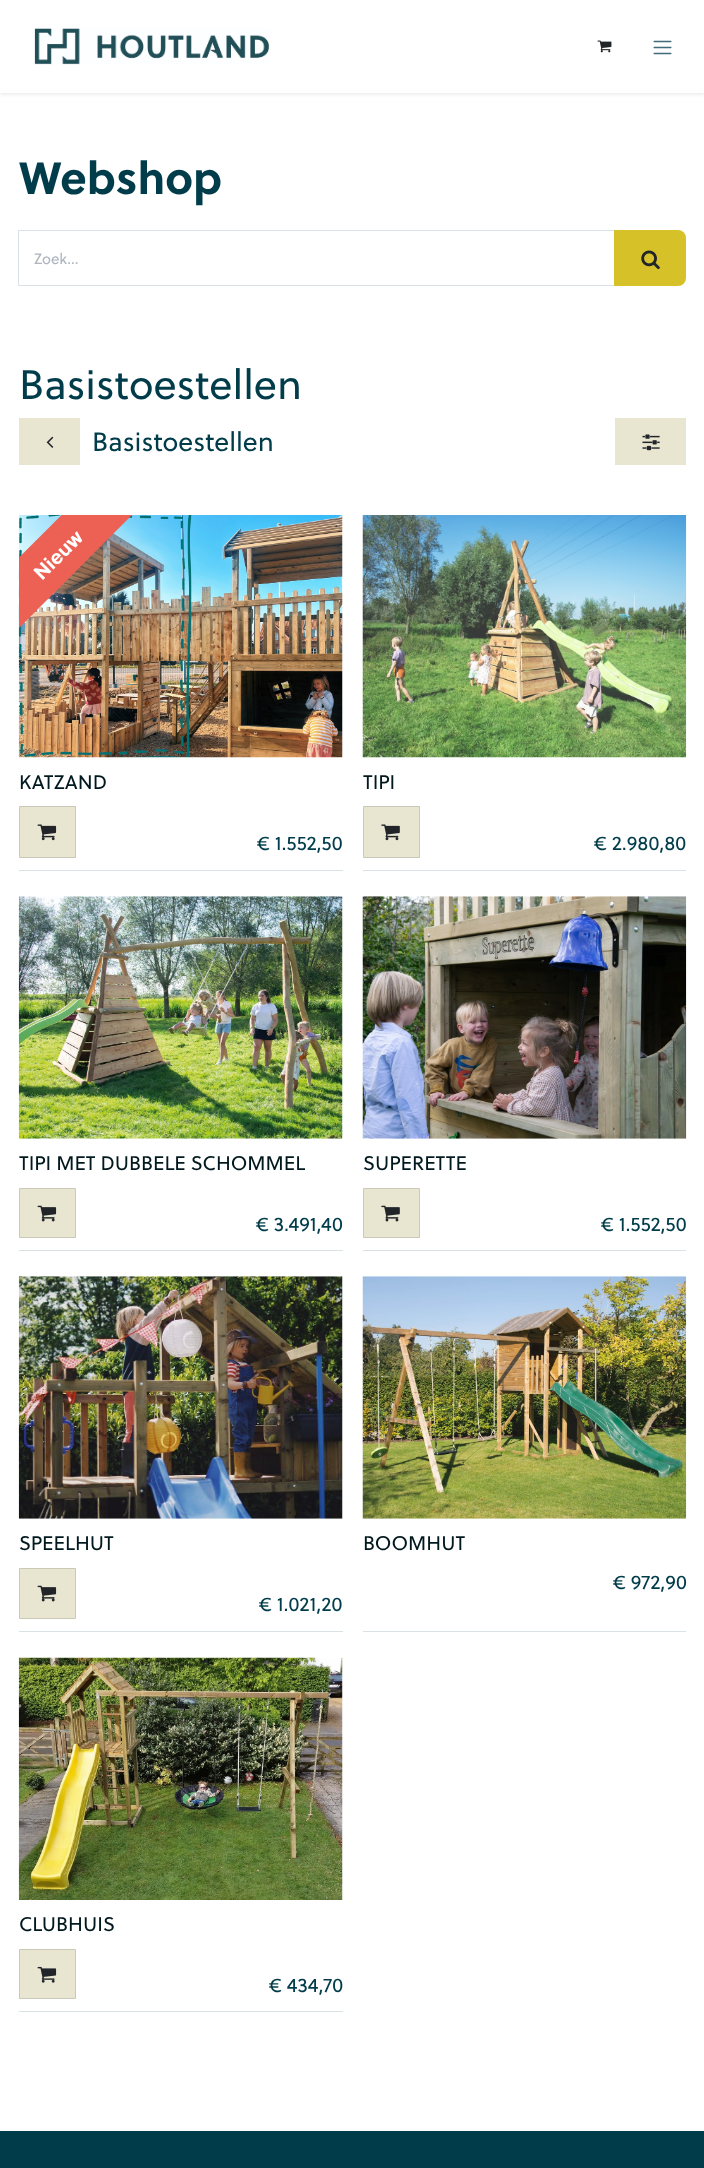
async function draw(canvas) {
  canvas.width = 704
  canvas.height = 2168
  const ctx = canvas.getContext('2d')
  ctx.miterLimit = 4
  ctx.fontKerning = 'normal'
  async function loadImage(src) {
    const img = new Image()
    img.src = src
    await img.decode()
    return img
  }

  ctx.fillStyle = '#fff'
  ctx.fillRect(0, 0, 704, 2168)
  ctx.fillStyle = '#0000001a'
  ctx.filter = 'blur(2px)'
  ctx.beginPath()
  ctx.rect(0, 1, 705, 93)
  ctx.fill()
  ctx.filter = 'none'
  ctx.fillStyle = '#fff'
  ctx.fillRect(0, 0, 704, 93)
  ctx.drawImage(await loadImage('image0.png'), 34, 28, 236, 37)
  ctx.drawImage(await loadImage('image1.png'), 597, 40, 15, 13)
  ctx.drawImage(await loadImage('image2.png'), 653, 40, 19, 15)
  ctx.font = 'bold 45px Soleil'
  ctx.fillStyle = '#003c4a'
  ctx.fillText('Webshop', 19, 194)
  ctx.strokeStyle = '#d9e2e4'
  ctx.strokeRect(18.5, 230.5, 596, 55)
  ctx.font = '15px Soleil'
  ctx.fillStyle = '#adb5bd'
  ctx.fillText('Zoek...', 34, 264)
  ctx.fillStyle = '#d6c128'
  ctx.beginPath()
  ctx.roundRect(614, 230, 72, 56, [0, 8, 8, 0])
  ctx.fill()
  ctx.drawImage(await loadImage('image3.png'), 641, 250, 19, 20)
  ctx.font = '41.25px Soleil'
  ctx.fillStyle = '#003c4a'
  ctx.fillText('Basistoestellen', 19, 399)
  ctx.fillStyle = '#e8e6d1'
  ctx.fillRect(19, 418, 61, 47)
  ctx.drawImage(await loadImage('image4.png'), 46, 436, 8, 12)
  ctx.font = '26.5px Soleil'
  ctx.fillStyle = '#003c4a'
  ctx.fillText('Basistoestellen', 92, 451)
  ctx.fillStyle = '#e8e6d1'
  ctx.fillRect(615, 418, 71, 47)
  ctx.drawImage(await loadImage('image5.png'), 642, 434, 18, 17)
  ctx.fillStyle = '#d9e2e4'
  ctx.fillRect(19, 870, 324, 1)
  ctx.drawImage(await loadImage('image6.png'), 18, 515, 325, 243)
  ctx.save()
  ctx.beginPath()
  ctx.rect(19, 515, 324, 243)
  ctx.clip()
  ctx.fillStyle = '#ec6153'
  ctx.beginPath()
  ctx.moveTo(-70, 646)
  ctx.lineTo(150, 427)
  ctx.lineTo(185, 462)
  ctx.lineTo(-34, 681)
  ctx.closePath()
  ctx.fill()
  ctx.restore()
  ctx.font = 'bold 20px Soleil'
  ctx.fillStyle = '#fff'
  ctx.save()
  ctx.translate(42, 581)
  ctx.rotate(-45 * Math.PI / 180)
  ctx.fillText('Nieuw', 0, 0)
  ctx.restore()
  ctx.font = '19.75px Soleil'
  ctx.fillStyle = '#00181e'
  ctx.fillText('KATZAND', 19, 789)
  ctx.fillStyle = '#e8e6d1'
  ctx.beginPath()
  ctx.rect(19.5, 806.5, 56, 51)
  ctx.fill()
  ctx.strokeStyle = '#cac9b8'
  ctx.stroke()
  ctx.drawImage(await loadImage('image7.png'), 37, 824, 20, 17)
  ctx.fillStyle = '#003c4a'
  ctx.fillText('€ 1.552,50', 257, 850)
  ctx.fillStyle = '#d9e2e4'
  ctx.fillRect(363, 870, 323, 1)
  ctx.drawImage(await loadImage('image8.png'), 362, 515, 325, 243)
  ctx.fillStyle = '#00181e'
  ctx.fillText('TIPI', 363, 789)
  ctx.fillStyle = '#e8e6d1'
  ctx.beginPath()
  ctx.rect(363.5, 806.5, 56, 51)
  ctx.fill()
  ctx.stroke()
  ctx.drawImage(await loadImage('image9.png'), 381, 824, 19, 17)
  ctx.fillStyle = '#003c4a'
  ctx.fillText('€ 2.980,80', 594, 850)
  ctx.fillStyle = '#d9e2e4'
  ctx.fillRect(19, 1250, 324, 1)
  ctx.drawImage(await loadImage('image10.png'), 18, 896, 325, 243)
  ctx.fillStyle = '#00181e'
  ctx.fillText('TIPI MET DUBBELE SCHOMMEL', 19, 1170)
  ctx.fillStyle = '#e8e6d1'
  ctx.beginPath()
  ctx.rect(19.5, 1188.5, 56, 49)
  ctx.fill()
  ctx.stroke()
  ctx.drawImage(await loadImage('image11.png'), 37, 1205, 20, 17)
  ctx.fillStyle = '#003c4a'
  ctx.fillText('€ 3.491,40', 256, 1231)
  ctx.fillStyle = '#d9e2e4'
  ctx.fillRect(363, 1250, 323, 1)
  ctx.drawImage(await loadImage('image12.png'), 362, 896, 325, 243)
  ctx.fillStyle = '#00181e'
  ctx.fillText('SUPERETTE', 363, 1170)
  ctx.fillStyle = '#e8e6d1'
  ctx.beginPath()
  ctx.rect(363.5, 1188.5, 56, 49)
  ctx.fill()
  ctx.stroke()
  ctx.drawImage(await loadImage('image13.png'), 381, 1205, 19, 17)
  ctx.fillStyle = '#003c4a'
  ctx.fillText('€ 1.552,50', 601, 1231)
  ctx.fillStyle = '#d9e2e4'
  ctx.fillRect(19, 1631, 324, 1)
  ctx.drawImage(await loadImage('image14.png'), 18, 1276, 325, 243)
  ctx.fillStyle = '#00181e'
  ctx.fillText('SPEELHUT', 19, 1550)
  ctx.fillStyle = '#e8e6d1'
  ctx.beginPath()
  ctx.rect(19.5, 1568.5, 56, 50)
  ctx.fill()
  ctx.stroke()
  ctx.drawImage(await loadImage('image11.png'), 37, 1585, 20, 17)
  ctx.fillStyle = '#003c4a'
  ctx.fillText('€ 1.021,20', 259, 1611)
  ctx.fillStyle = '#d9e2e4'
  ctx.fillRect(363, 1631, 323, 1)
  ctx.drawImage(await loadImage('image15.png'), 362, 1276, 325, 243)
  ctx.fillStyle = '#00181e'
  ctx.fillText('BOOMHUT', 363, 1550)
  ctx.fillStyle = '#003c4a'
  ctx.fillText('€ 972,90', 613, 1589)
  ctx.fillStyle = '#d9e2e4'
  ctx.fillRect(19, 2011, 324, 1)
  ctx.drawImage(await loadImage('image16.png'), 18, 1657, 325, 243)
  ctx.fillStyle = '#00181e'
  ctx.fillText('CLUBHUIS', 19, 1931)
  ctx.fillStyle = '#e8e6d1'
  ctx.beginPath()
  ctx.rect(19.5, 1949.5, 56, 49)
  ctx.fill()
  ctx.stroke()
  ctx.drawImage(await loadImage('image17.png'), 37, 1966, 20, 17)
  ctx.fillStyle = '#003c4a'
  ctx.fillText('€ 434,70', 269, 1992)
  ctx.fillRect(0, 2131, 704, 37)
}

draw(document.querySelector('canvas'))
